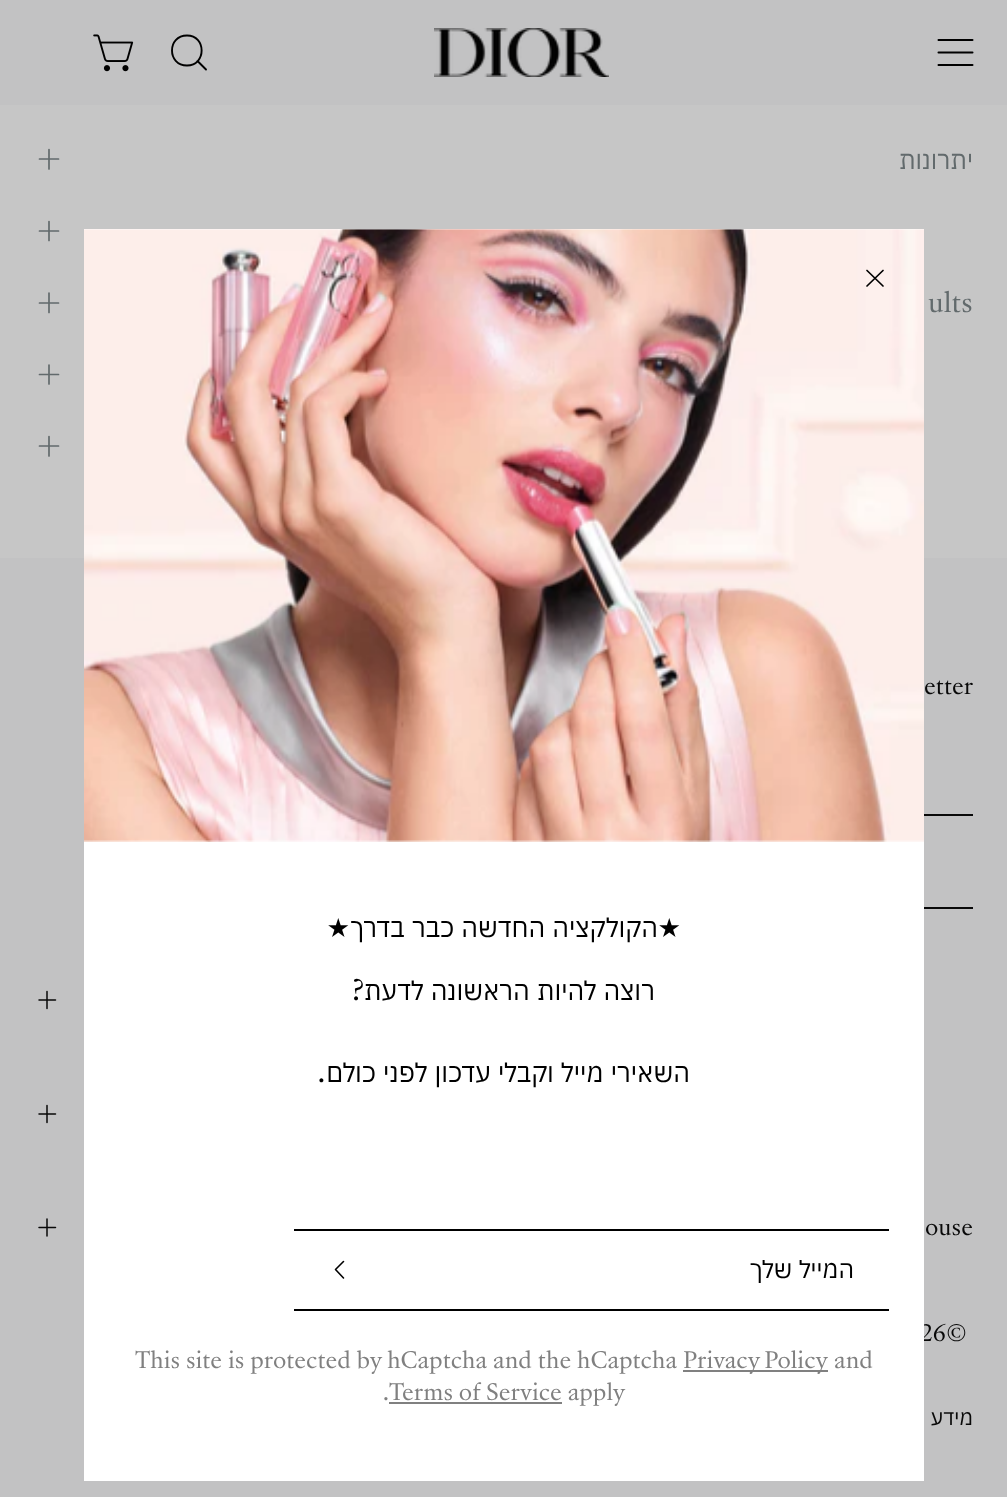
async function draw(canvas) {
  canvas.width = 1007
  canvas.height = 1497
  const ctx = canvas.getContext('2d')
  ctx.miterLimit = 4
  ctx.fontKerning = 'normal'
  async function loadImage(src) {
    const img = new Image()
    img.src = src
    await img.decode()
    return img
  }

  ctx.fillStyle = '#c2c2c3'
  ctx.fillRect(0, 0, 1007, 1497)
  ctx.drawImage(await loadImage('image0.png'), 434, 28, 175, 49)
  ctx.drawImage(await loadImage('image1.png'), 93, 34, 41, 38)
  ctx.beginPath()
  ctx.moveTo(187, 65.5)
  ctx.bezierCurveTo(206.5, 65.5, 206.5, 35.5, 187, 35.5)
  ctx.bezierCurveTo(167, 35.5, 167, 65.5, 187, 65.5)
  ctx.closePath()
  ctx.moveTo(197.5, 61)
  ctx.lineTo(206, 69.5)
  ctx.strokeStyle = '#000'
  ctx.lineWidth = 1.9
  ctx.lineCap = 'round'
  ctx.lineJoin = 'round'
  ctx.stroke()
  ctx.beginPath()
  ctx.moveTo(938.5, 52.5)
  ctx.lineTo(972.5, 52.5)
  ctx.moveTo(938.5, 40)
  ctx.lineTo(972.5, 40)
  ctx.moveTo(938.5, 65)
  ctx.lineTo(972.5, 65)
  ctx.lineWidth = 2
  ctx.stroke()
  ctx.fillStyle = '#c6c6c6'
  ctx.fillRect(0, 105, 1007, 453)
  ctx.beginPath()
  ctx.moveTo(39.5, 159)
  ctx.lineTo(58.5, 159)
  ctx.moveTo(49, 149.5)
  ctx.lineTo(49, 169)
  ctx.strokeStyle = '#626a6c'
  ctx.lineWidth = 1.7
  ctx.stroke()
  ctx.direction = 'rtl'
  ctx.font = '25px IBM Plex Sans Hebrew'
  ctx.fillStyle = '#626a6c'
  ctx.fillText('יתרונות', 973, 169)
  ctx.beginPath()
  ctx.moveTo(39.5, 231)
  ctx.lineTo(58.5, 231)
  ctx.moveTo(49, 221.5)
  ctx.lineTo(49, 240.5)
  ctx.stroke()
  ctx.beginPath()
  ctx.moveTo(39.5, 303)
  ctx.lineTo(58.5, 303)
  ctx.moveTo(49, 293)
  ctx.lineTo(49, 312.5)
  ctx.stroke()
  ctx.direction = 'ltr'
  ctx.font = '25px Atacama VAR'
  ctx.fillText('ults', 928, 312)
  ctx.beginPath()
  ctx.moveTo(39.5, 374.5)
  ctx.lineTo(58.5, 374.5)
  ctx.moveTo(49, 365)
  ctx.lineTo(49, 384)
  ctx.moveTo(39.5, 374.5)
  ctx.lineTo(58.5, 374.5)
  ctx.stroke()
  ctx.beginPath()
  ctx.moveTo(39.5, 446)
  ctx.lineTo(58.5, 446)
  ctx.moveTo(49, 436.5)
  ctx.lineTo(49, 456)
  ctx.stroke()
  ctx.font = '21px Atacama VAR'
  ctx.fillStyle = '#090909'
  ctx.fillText('26©', 920, 1341)
  ctx.fillStyle = '#fff'
  ctx.fillRect(84, 229, 840, 1252)
  ctx.drawImage(await loadImage('image2.png'), 84, 229, 840, 613)
  ctx.beginPath()
  ctx.moveTo(883, 270.5)
  ctx.lineTo(867, 286)
  ctx.moveTo(883, 286)
  ctx.lineTo(867, 270.5)
  ctx.strokeStyle = '#000'
  ctx.stroke()
  ctx.direction = 'rtl'
  ctx.font = '26.25px DejaVu Sans'
  ctx.fillStyle = '#000'
  ctx.fillText('★', 350, 937)
  ctx.wordSpacing = '1px'
  ctx.font = '26.25px IBM Plex Sans Hebrew'
  ctx.fillText('הקולקציה החדשה כבר בדרך', 658, 937)
  ctx.wordSpacing = '0px'
  ctx.font = '26.25px DejaVu Sans'
  ctx.fillText('★', 681, 937)
  ctx.font = '26.25px Atacama VAR'
  ctx.fillText('?', 364, 1000)
  ctx.wordSpacing = '1px'
  ctx.font = '26.25px IBM Plex Sans Hebrew'
  ctx.fillText('רוצה להיות הראשונה לדעת', 655, 1000)
  ctx.wordSpacing = '0px'
  ctx.font = '26.25px Atacama VAR'
  ctx.fillText('.', 325, 1082)
  ctx.wordSpacing = '1px'
  ctx.font = '26.25px IBM Plex Sans Hebrew'
  ctx.fillText('השאירי מייל וקבלי עדכון לפני כולם', 690, 1082)
  ctx.beginPath()
  ctx.moveTo(343.5, 1261.5)
  ctx.lineTo(335.5, 1269.5)
  ctx.lineTo(343.5, 1278)
  ctx.lineWidth = 1.6
  ctx.stroke()
  ctx.fillRect(294, 1229, 595, 2)
  ctx.fillRect(294, 1309, 595, 2)
  ctx.font = '24.5px IBM Plex Sans Hebrew'
  ctx.fillText('המייל שלך', 854, 1278)
  ctx.wordSpacing = '0px'
  ctx.direction = 'ltr'
  ctx.font = '21px Atacama VAR'
  ctx.fillStyle = '#808080'
  ctx.fillText('This site is protected by hCaptcha and the hCaptcha', 135, 1368)
  ctx.fillRect(683, 1370, 145, 2)
  ctx.wordSpacing = '-1px'
  ctx.fillText('Privacy Policy', 683, 1368)
  ctx.wordSpacing = '0px'
  ctx.fillText('and', 834, 1368)
  ctx.fillText('.', 383, 1400)
  ctx.fillRect(389, 1402, 173, 2)
  ctx.fillText('Terms of Service apply', 389, 1400)
  ctx.fillStyle = '#090909'
  ctx.fillText('etter', 924, 694)
  ctx.fillRect(924, 814, 49, 2)
  ctx.fillRect(924, 907, 49, 2)
  ctx.beginPath()
  ctx.moveTo(39, 1000)
  ctx.lineTo(55.5, 1000)
  ctx.moveTo(47, 991.5)
  ctx.lineTo(47, 1008.5)
  ctx.strokeStyle = '#090909'
  ctx.lineWidth = 1.5
  ctx.stroke()
  ctx.beginPath()
  ctx.moveTo(39, 1114)
  ctx.lineTo(55.5, 1114)
  ctx.moveTo(47, 1105.5)
  ctx.lineTo(47, 1122.5)
  ctx.stroke()
  ctx.beginPath()
  ctx.moveTo(39, 1227.5)
  ctx.lineTo(55.5, 1227.5)
  ctx.moveTo(47, 1219)
  ctx.lineTo(47, 1236)
  ctx.stroke()
  ctx.fillText('ouse', 925, 1235)
  ctx.direction = 'rtl'
  ctx.font = '21px IBM Plex Sans Hebrew'
  ctx.fillText('מידע', 973, 1425)
}

draw(document.querySelector('canvas'))
